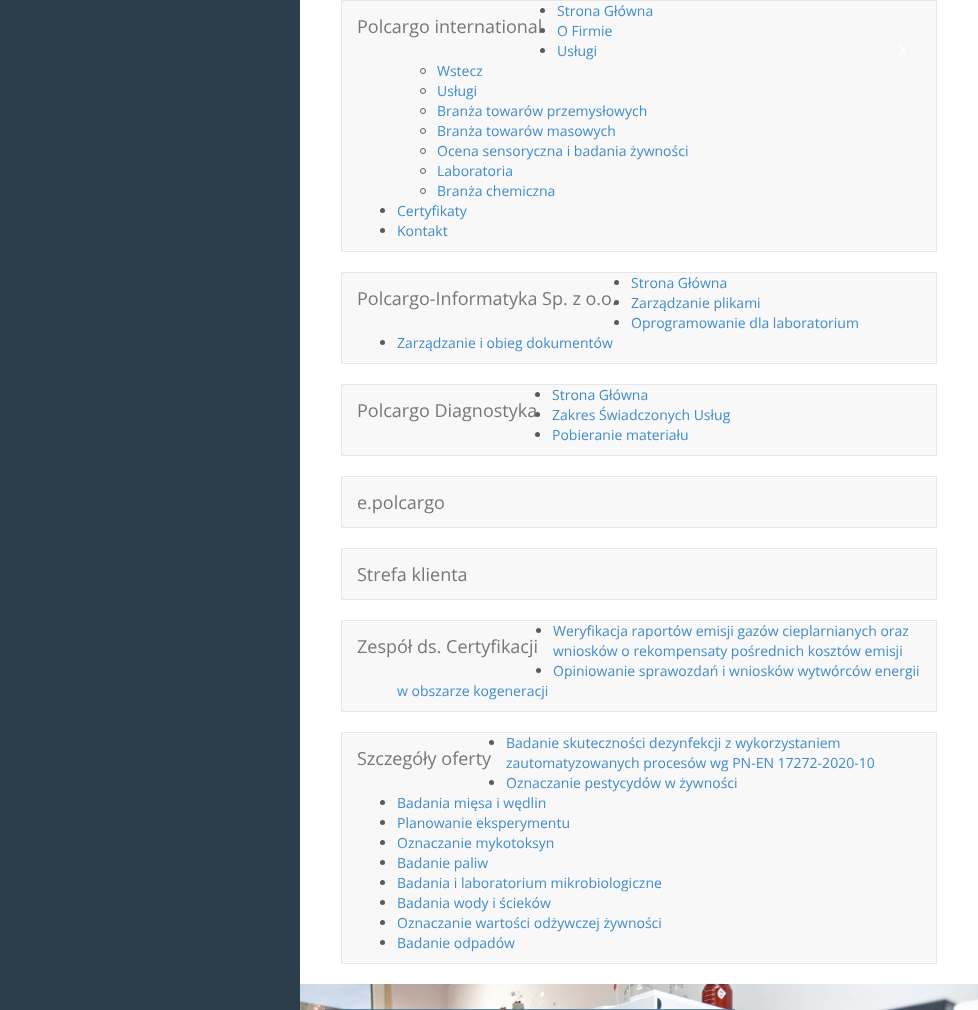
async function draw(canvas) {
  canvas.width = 978
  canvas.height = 1010
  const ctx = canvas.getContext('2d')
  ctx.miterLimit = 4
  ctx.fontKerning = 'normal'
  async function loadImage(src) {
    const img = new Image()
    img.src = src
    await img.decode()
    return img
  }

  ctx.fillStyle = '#2c3e4c'
  ctx.fillRect(0, 0, 978, 1010)
  ctx.fillStyle = '#fff'
  ctx.fillRect(300, 0, 678, 984)
  ctx.fillStyle = '#f8f8f8'
  ctx.beginPath()
  ctx.rect(341.5, 0.5, 595, 251)
  ctx.fill()
  ctx.strokeStyle = '#e7e7e7'
  ctx.stroke()
  ctx.fillStyle = '#595a5c'
  ctx.beginPath()
  ctx.arc(542.5, 10.5, 2.5, 0, 2 * Math.PI)
  ctx.fill()
  ctx.font = '14px Open Sans'
  ctx.fillStyle = '#428bca'
  ctx.fillText('Strona Główna', 557, 16)
  ctx.font = '18px Open Sans'
  ctx.fillStyle = '#777'
  ctx.fillText('Polcargo international', 357, 33)
  ctx.fillStyle = '#595a5c'
  ctx.beginPath()
  ctx.arc(542.5, 30.5, 2.5, 0, 2 * Math.PI)
  ctx.fill()
  ctx.font = '14px Open Sans'
  ctx.fillStyle = '#428bca'
  ctx.fillText('O Firmie', 557, 36)
  ctx.fillStyle = '#595a5c'
  ctx.beginPath()
  ctx.arc(542.5, 50.5, 2.5, 0, 2 * Math.PI)
  ctx.fill()
  ctx.fillStyle = '#428bca'
  ctx.fillText('Usługi', 557, 56)
  ctx.drawImage(await loadImage('image0.png'), 899, 45, 7, 11)
  ctx.beginPath()
  ctx.arc(423, 71, 2.5, 0, 2 * Math.PI)
  ctx.strokeStyle = '#595a5c'
  ctx.stroke()
  ctx.fillText('Wstecz', 437, 76)
  ctx.beginPath()
  ctx.arc(423, 91, 2.5, 0, 2 * Math.PI)
  ctx.stroke()
  ctx.fillText('Usługi', 437, 96)
  ctx.beginPath()
  ctx.arc(423, 111, 2.5, 0, 2 * Math.PI)
  ctx.stroke()
  ctx.fillText('Branża towarów przemysłowych', 437, 116)
  ctx.beginPath()
  ctx.arc(423, 131, 2.5, 0, 2 * Math.PI)
  ctx.stroke()
  ctx.fillText('Branża towarów masowych', 437, 136)
  ctx.beginPath()
  ctx.arc(423, 151, 2.5, 0, 2 * Math.PI)
  ctx.stroke()
  ctx.fillText('Ocena sensoryczna i badania żywności', 437, 156)
  ctx.beginPath()
  ctx.arc(423, 171, 2.5, 0, 2 * Math.PI)
  ctx.stroke()
  ctx.fillText('Laboratoria', 437, 176)
  ctx.beginPath()
  ctx.arc(423, 191, 2.5, 0, 2 * Math.PI)
  ctx.stroke()
  ctx.fillText('Branża chemiczna', 437, 196)
  ctx.fillStyle = '#595a5c'
  ctx.beginPath()
  ctx.arc(382.5, 210.5, 2.5, 0, 2 * Math.PI)
  ctx.fill()
  ctx.fillStyle = '#428bca'
  ctx.fillText('Certyfikaty', 397, 216)
  ctx.fillStyle = '#595a5c'
  ctx.beginPath()
  ctx.arc(382.5, 230.5, 2.5, 0, 2 * Math.PI)
  ctx.fill()
  ctx.fillStyle = '#428bca'
  ctx.fillText('Kontakt', 397, 236)
  ctx.fillStyle = '#f8f8f8'
  ctx.beginPath()
  ctx.rect(341.5, 272.5, 595, 91)
  ctx.fill()
  ctx.strokeStyle = '#e7e7e7'
  ctx.stroke()
  ctx.fillStyle = '#595a5c'
  ctx.beginPath()
  ctx.arc(616.5, 282.5, 2.5, 0, 2 * Math.PI)
  ctx.fill()
  ctx.fillStyle = '#428bca'
  ctx.fillText('Strona Główna', 631, 288)
  ctx.font = '18px Open Sans'
  ctx.fillStyle = '#777'
  ctx.fillText('Polcargo-Informatyka Sp. z o.o.', 357, 305)
  ctx.fillStyle = '#595a5c'
  ctx.beginPath()
  ctx.arc(616.5, 302.5, 2.5, 0, 2 * Math.PI)
  ctx.fill()
  ctx.font = '14px Open Sans'
  ctx.fillStyle = '#428bca'
  ctx.fillText('Zarządzanie plikami', 631, 308)
  ctx.fillStyle = '#595a5c'
  ctx.beginPath()
  ctx.arc(616.5, 322.5, 2.5, 0, 2 * Math.PI)
  ctx.fill()
  ctx.fillStyle = '#428bca'
  ctx.fillText('Oprogramowanie dla laboratorium', 631, 328)
  ctx.fillStyle = '#595a5c'
  ctx.beginPath()
  ctx.arc(382.5, 342.5, 2.5, 0, 2 * Math.PI)
  ctx.fill()
  ctx.fillStyle = '#428bca'
  ctx.fillText('Zarządzanie i obieg dokumentów', 397, 348)
  ctx.fillStyle = '#f8f8f8'
  ctx.beginPath()
  ctx.rect(341.5, 384.5, 595, 71)
  ctx.fill()
  ctx.stroke()
  ctx.font = '18px Open Sans'
  ctx.fillStyle = '#777'
  ctx.fillText('Polcargo Diagnostyka', 357, 417)
  ctx.fillStyle = '#595a5c'
  ctx.beginPath()
  ctx.arc(537.5, 394.5, 2.5, 0, 2 * Math.PI)
  ctx.fill()
  ctx.font = '14px Open Sans'
  ctx.fillStyle = '#428bca'
  ctx.fillText('Strona Główna', 552, 400)
  ctx.fillStyle = '#595a5c'
  ctx.beginPath()
  ctx.arc(537.5, 414.5, 2.5, 0, 2 * Math.PI)
  ctx.fill()
  ctx.fillStyle = '#428bca'
  ctx.fillText('Zakres Świadczonych Usług', 552, 420)
  ctx.fillStyle = '#595a5c'
  ctx.beginPath()
  ctx.arc(537.5, 434.5, 2.5, 0, 2 * Math.PI)
  ctx.fill()
  ctx.fillStyle = '#428bca'
  ctx.fillText('Pobieranie materiału', 552, 440)
  ctx.fillStyle = '#f8f8f8'
  ctx.beginPath()
  ctx.rect(341.5, 476.5, 595, 51)
  ctx.fill()
  ctx.stroke()
  ctx.font = '18px Open Sans'
  ctx.fillStyle = '#777'
  ctx.fillText('e.polcargo', 357, 509)
  ctx.fillStyle = '#f8f8f8'
  ctx.beginPath()
  ctx.rect(341.5, 548.5, 595, 51)
  ctx.fill()
  ctx.stroke()
  ctx.fillStyle = '#777'
  ctx.fillText('Strefa klienta', 357, 581)
  ctx.fillStyle = '#f8f8f8'
  ctx.beginPath()
  ctx.rect(341.5, 620.5, 595, 91)
  ctx.fill()
  ctx.stroke()
  ctx.fillStyle = '#595a5c'
  ctx.beginPath()
  ctx.arc(538.5, 630.5, 2.5, 0, 2 * Math.PI)
  ctx.fill()
  ctx.font = '14px Open Sans'
  ctx.fillStyle = '#428bca'
  ctx.fillText('Weryfikacja raportów emisji gazów cieplarnianych oraz', 553, 636)
  ctx.fillText('wniosków o rekompensaty pośrednich kosztów emisji', 553, 656)
  ctx.fillStyle = '#595a5c'
  ctx.beginPath()
  ctx.arc(538.5, 670.5, 2.5, 0, 2 * Math.PI)
  ctx.fill()
  ctx.fillStyle = '#428bca'
  ctx.fillText('Opiniowanie sprawozdań i wniosków wytwórców energii', 553, 676)
  ctx.fillText('w obszarze kogeneracji', 397, 696)
  ctx.font = '18px Open Sans'
  ctx.fillStyle = '#777'
  ctx.fillText('Zespół ds. Certyfikacji', 357, 653)
  ctx.fillStyle = '#f8f8f8'
  ctx.beginPath()
  ctx.rect(341.5, 732.5, 595, 231)
  ctx.fill()
  ctx.stroke()
  ctx.fillStyle = '#595a5c'
  ctx.beginPath()
  ctx.arc(491.5, 742.5, 2.5, 0, 2 * Math.PI)
  ctx.fill()
  ctx.font = '14px Open Sans'
  ctx.fillStyle = '#428bca'
  ctx.fillText('Badanie skuteczności dezynfekcji z wykorzystaniem', 506, 748)
  ctx.fillText('zautomatyzowanych procesów wg PN-EN 17272-2020-10', 506, 768)
  ctx.fillStyle = '#595a5c'
  ctx.beginPath()
  ctx.arc(491.5, 782.5, 2.5, 0, 2 * Math.PI)
  ctx.fill()
  ctx.fillStyle = '#428bca'
  ctx.fillText('Oznaczanie pestycydów w żywności', 506, 788)
  ctx.fillStyle = '#595a5c'
  ctx.beginPath()
  ctx.arc(382.5, 802.5, 2.5, 0, 2 * Math.PI)
  ctx.fill()
  ctx.fillStyle = '#428bca'
  ctx.fillText('Badania mięsa i wędlin', 397, 808)
  ctx.fillStyle = '#595a5c'
  ctx.beginPath()
  ctx.arc(382.5, 822.5, 2.5, 0, 2 * Math.PI)
  ctx.fill()
  ctx.fillStyle = '#428bca'
  ctx.fillText('Planowanie eksperymentu', 397, 828)
  ctx.fillStyle = '#595a5c'
  ctx.beginPath()
  ctx.arc(382.5, 842.5, 2.5, 0, 2 * Math.PI)
  ctx.fill()
  ctx.fillStyle = '#428bca'
  ctx.fillText('Oznaczanie mykotoksyn', 397, 848)
  ctx.fillStyle = '#595a5c'
  ctx.beginPath()
  ctx.arc(382.5, 862.5, 2.5, 0, 2 * Math.PI)
  ctx.fill()
  ctx.fillStyle = '#428bca'
  ctx.fillText('Badanie paliw', 397, 868)
  ctx.fillStyle = '#595a5c'
  ctx.beginPath()
  ctx.arc(382.5, 882.5, 2.5, 0, 2 * Math.PI)
  ctx.fill()
  ctx.fillStyle = '#428bca'
  ctx.fillText('Badania i laboratorium mikrobiologiczne', 397, 888)
  ctx.fillStyle = '#595a5c'
  ctx.beginPath()
  ctx.arc(382.5, 902.5, 2.5, 0, 2 * Math.PI)
  ctx.fill()
  ctx.fillStyle = '#428bca'
  ctx.fillText('Badania wody i ścieków', 397, 908)
  ctx.fillStyle = '#595a5c'
  ctx.beginPath()
  ctx.arc(382.5, 922.5, 2.5, 0, 2 * Math.PI)
  ctx.fill()
  ctx.fillStyle = '#428bca'
  ctx.fillText('Oznaczanie wartości odżywczej żywności', 397, 928)
  ctx.fillStyle = '#595a5c'
  ctx.beginPath()
  ctx.arc(382.5, 942.5, 2.5, 0, 2 * Math.PI)
  ctx.fill()
  ctx.fillStyle = '#428bca'
  ctx.fillText('Badanie odpadów', 397, 948)
  ctx.font = '18px Open Sans'
  ctx.fillStyle = '#777'
  ctx.fillText('Szczegóły oferty', 357, 765)
  ctx.drawImage(await loadImage('image1.png'), 300, 984, 678, 26)
  ctx.fillStyle = '#406d8ccc'
  ctx.fillRect(325, 1009, 410, 1)
}

draw(document.querySelector('canvas'))
